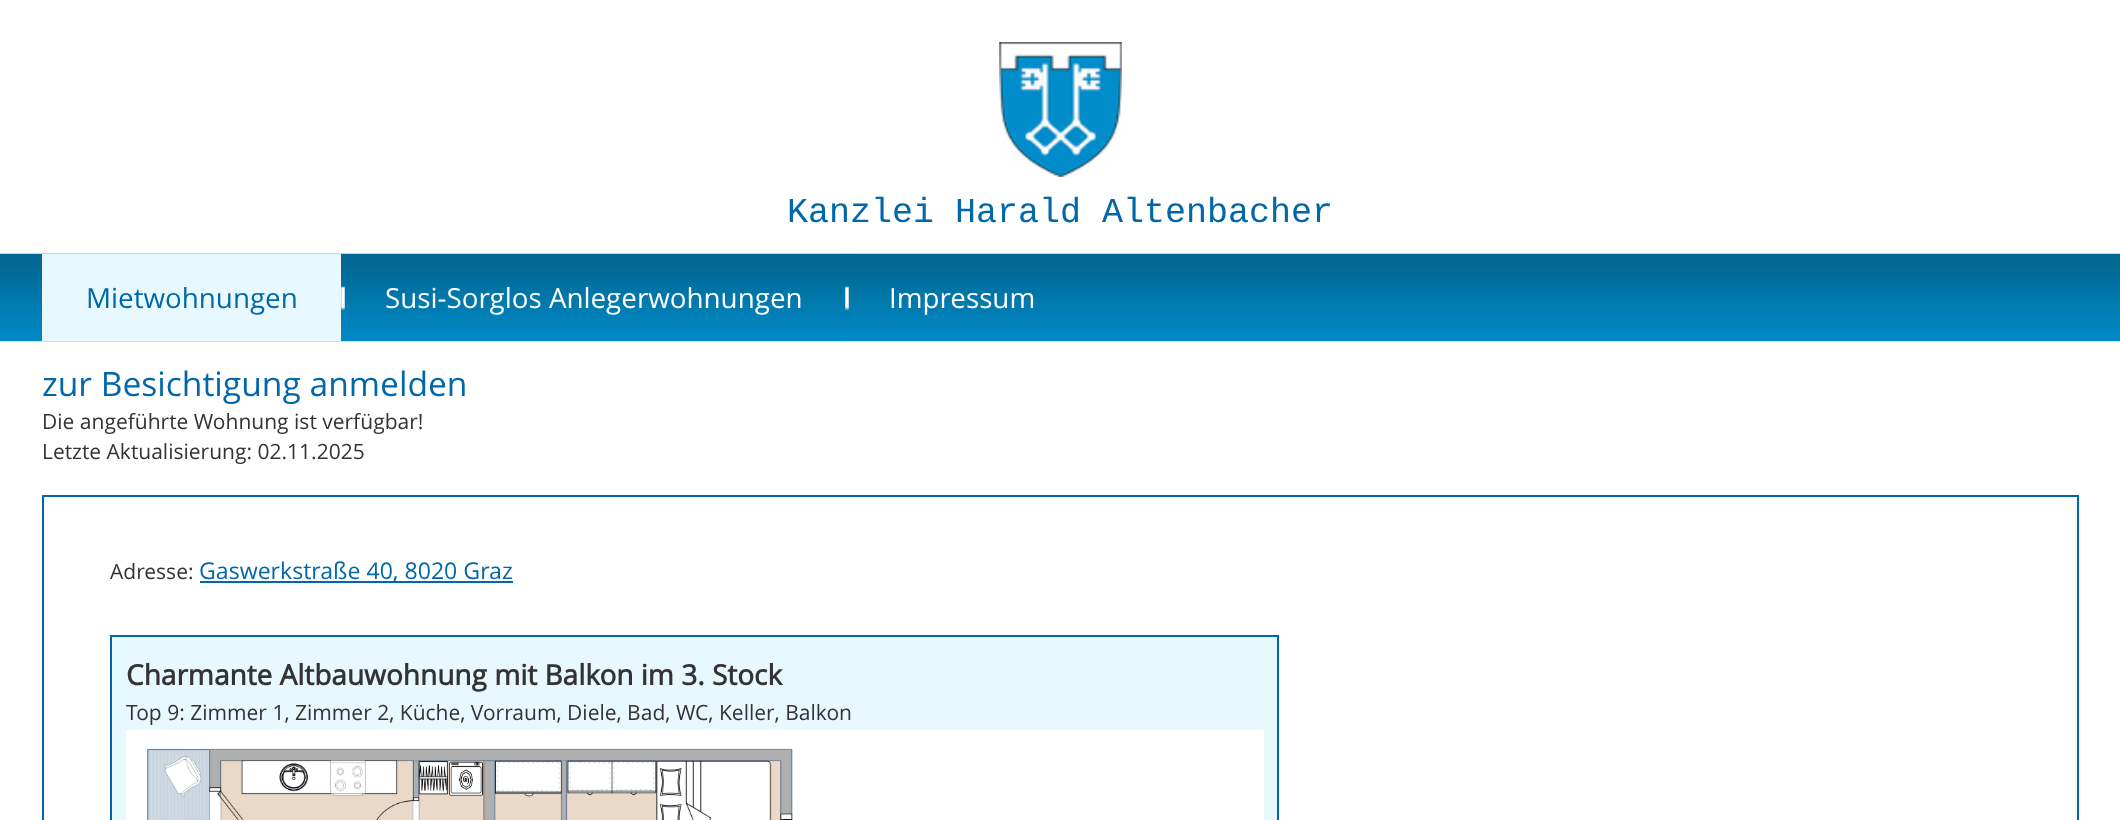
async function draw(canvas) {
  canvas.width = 2120
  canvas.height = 820
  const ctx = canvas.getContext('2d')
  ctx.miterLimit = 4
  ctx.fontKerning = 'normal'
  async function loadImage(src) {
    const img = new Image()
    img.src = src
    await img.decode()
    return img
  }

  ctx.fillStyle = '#fff'
  ctx.fillRect(0, 0, 2120, 820)
  ctx.drawImage(await loadImage('image0.png'), 999, 42, 123, 135)
  ctx.font = '35px Liberation Mono'
  ctx.fillStyle = '#0067a9'
  ctx.fillText('Kanzlei Harald Altenbacher', 787, 222)
  ctx.drawImage(await loadImage('image1.png'), 0, 253, 2120, 89)
  ctx.fillStyle = '#e8f8ff'
  ctx.fillRect(42, 254, 299, 87)
  ctx.font = '27.75px Open Sans'
  ctx.fillStyle = '#0067a9'
  ctx.fillText('Mietwohnungen', 86, 308)
  ctx.drawImage(await loadImage('image2.png'), 341, 253, 4, 89)
  ctx.fillStyle = '#fff'
  ctx.fillText('Susi-Sorglos Anlegerwohnungen', 385, 308)
  ctx.drawImage(await loadImage('image2.png'), 845, 253, 4, 89)
  ctx.fillText('Impressum', 889, 308)
  ctx.font = '33.6px Open Sans'
  ctx.fillStyle = '#0067a9'
  ctx.fillText('zur Besichtigung anmelden', 42, 396)
  ctx.font = '21px Open Sans'
  ctx.fillStyle = '#333'
  ctx.fillText('Die angeführte Wohnung ist verfügbar!', 42, 429)
  ctx.fillText('Letzte Aktualisierung: 02.11.2025', 42, 459)
  ctx.strokeStyle = '#0067a9'
  ctx.lineWidth = 2
  ctx.strokeRect(43, 496, 2035, 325)
  ctx.fillText('Adresse:', 110, 579)
  ctx.fillStyle = '#0067a9'
  ctx.fillRect(200, 581, 313, 2)
  ctx.font = '23.1px Open Sans'
  ctx.fillText('Gaswerkstraße 40, 8020 Graz', 199, 579)
  ctx.fillStyle = '#e8f8ff'
  ctx.beginPath()
  ctx.rect(111, 636, 1167, 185)
  ctx.fill()
  ctx.stroke()
  ctx.font = 'bold 28px Open Sans'
  ctx.fillStyle = '#333'
  ctx.fillText('Charmante Altbauwohnung mit Balkon im 3. Stock', 126, 685)
  ctx.font = '21px Open Sans'
  ctx.fillText('Top 9: Zimmer 1, Zimmer 2, Küche, Vorraum, Diele, Bad, WC, Keller, Balkon', 126, 720)
  ctx.fillStyle = '#fff'
  ctx.fillRect(126, 730, 1138, 90)
  ctx.drawImage(await loadImage('image3.png'), 147, 748, 646, 72)
}

draw(document.querySelector('canvas'))
